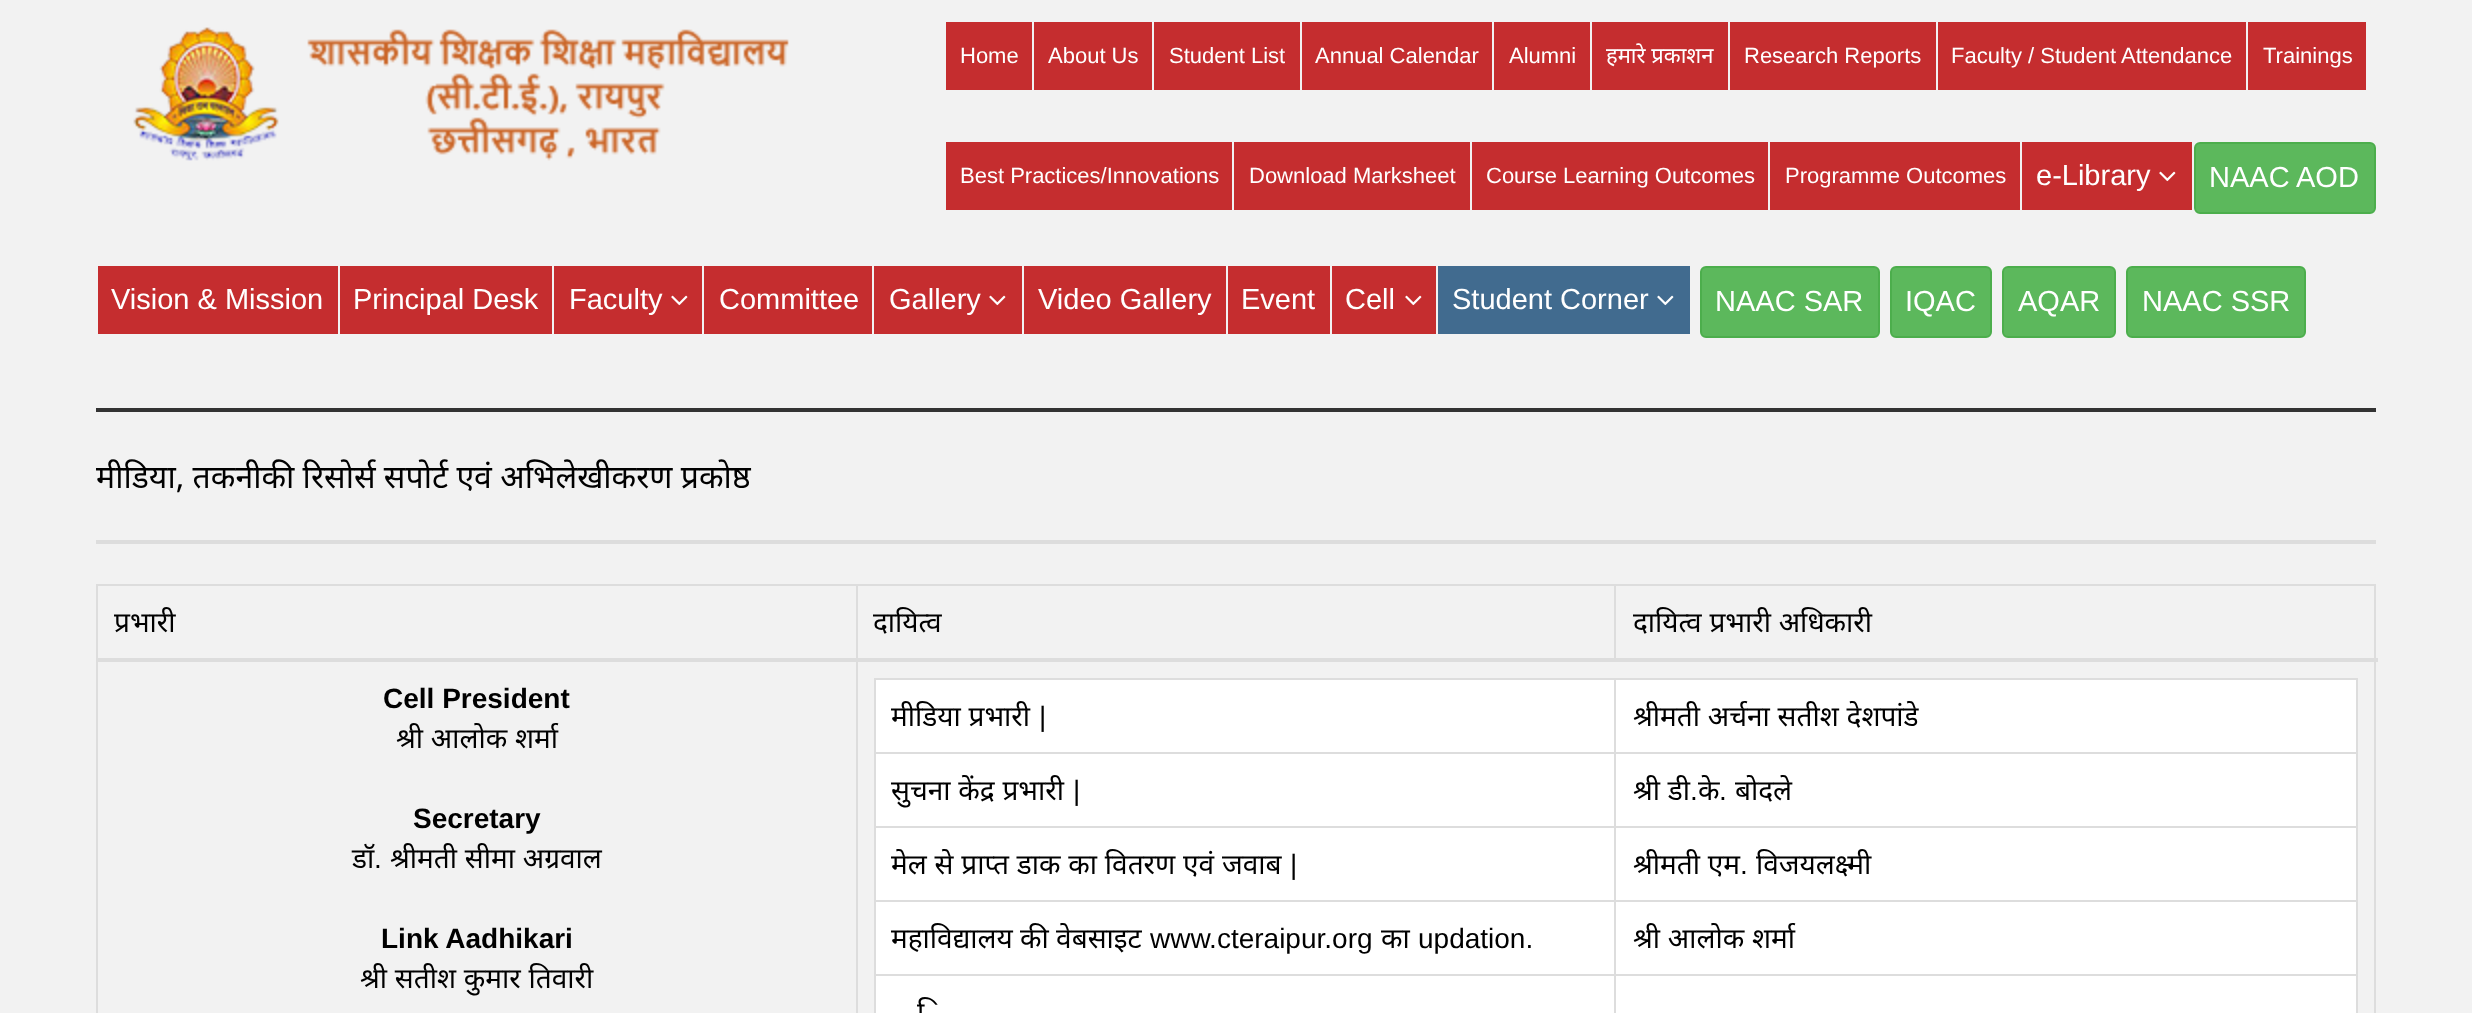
async function draw(canvas) {
  canvas.width = 2472
  canvas.height = 1013
  const ctx = canvas.getContext('2d')
  ctx.miterLimit = 4
  ctx.fontKerning = 'normal'
  async function loadImage(src) {
    const img = new Image()
    img.src = src
    await img.decode()
    return img
  }

  ctx.fillStyle = '#f2f2f2'
  ctx.fillRect(0, 0, 2472, 1013)
  ctx.drawImage(await loadImage('image0.png'), 133, 27, 656, 134)
  ctx.fillStyle = '#c52d2f'
  ctx.fillRect(946, 22, 86, 68)
  ctx.font = '22px Liberation Sans'
  ctx.fillStyle = '#fff'
  ctx.fillText('Home', 960, 63)
  ctx.fillStyle = '#c52d2f'
  ctx.fillRect(1034, 22, 118, 68)
  ctx.fillStyle = '#fff'
  ctx.fillText('About Us', 1048, 63)
  ctx.fillStyle = '#c52d2f'
  ctx.fillRect(1154, 22, 146, 68)
  ctx.fillStyle = '#fff'
  ctx.fillText('Student List', 1169, 63)
  ctx.fillStyle = '#c52d2f'
  ctx.fillRect(1302, 22, 190, 68)
  ctx.fillStyle = '#fff'
  ctx.fillText('Annual Calendar', 1315, 63)
  ctx.fillStyle = '#c52d2f'
  ctx.fillRect(1494, 22, 96, 68)
  ctx.fillStyle = '#fff'
  ctx.fillText('Alumni', 1509, 63)
  ctx.fillStyle = '#c52d2f'
  ctx.fillRect(1592, 22, 136, 68)
  ctx.font = '22px Noto Sans'
  ctx.fillStyle = '#fff'
  ctx.fillText('हमारे प्रकाशन', 1606, 63)
  ctx.fillStyle = '#c52d2f'
  ctx.fillRect(1730, 22, 206, 68)
  ctx.font = '22px Liberation Sans'
  ctx.fillStyle = '#fff'
  ctx.fillText('Research Reports', 1744, 63)
  ctx.fillStyle = '#c52d2f'
  ctx.fillRect(1938, 22, 308, 68)
  ctx.fillStyle = '#fff'
  ctx.fillText('Faculty / Student Attendance', 1951, 63)
  ctx.fillStyle = '#c52d2f'
  ctx.fillRect(2248, 22, 118, 68)
  ctx.fillStyle = '#fff'
  ctx.fillText('Trainings', 2263, 63)
  ctx.fillStyle = '#c52d2f'
  ctx.fillRect(946, 142, 286, 68)
  ctx.fillStyle = '#fff'
  ctx.fillText('Best Practices/Innovations', 960, 183)
  ctx.fillStyle = '#c52d2f'
  ctx.fillRect(1234, 142, 236, 68)
  ctx.fillStyle = '#fff'
  ctx.fillText('Download Marksheet', 1249, 183)
  ctx.fillStyle = '#c52d2f'
  ctx.fillRect(1472, 142, 296, 68)
  ctx.fillStyle = '#fff'
  ctx.fillText('Course Learning Outcomes', 1486, 183)
  ctx.fillStyle = '#c52d2f'
  ctx.fillRect(1770, 142, 250, 68)
  ctx.fillStyle = '#fff'
  ctx.fillText('Programme Outcomes', 1785, 183)
  ctx.fillStyle = '#c52d2f'
  ctx.fillRect(2022, 142, 170, 68)
  ctx.font = '29px Liberation Sans'
  ctx.fillStyle = '#fff'
  ctx.fillText('e-Library', 2036, 185)
  ctx.drawImage(await loadImage('image1.png'), 2159, 171, 17, 11)
  ctx.fillStyle = '#5cb85c'
  ctx.beginPath()
  ctx.roundRect(2195, 143, 180, 70, 5)
  ctx.fill()
  ctx.strokeStyle = '#4cae4c'
  ctx.lineWidth = 2
  ctx.stroke()
  ctx.fillStyle = '#fff'
  ctx.fillText('NAAC AOD', 2209, 187)
  ctx.fillStyle = '#c52d2f'
  ctx.fillRect(98, 266, 240, 68)
  ctx.fillStyle = '#fff'
  ctx.fillText('Vision & Mission', 111, 309)
  ctx.fillStyle = '#c52d2f'
  ctx.fillRect(340, 266, 212, 68)
  ctx.fillStyle = '#fff'
  ctx.fillText('Principal Desk', 353, 309)
  ctx.fillStyle = '#c52d2f'
  ctx.fillRect(554, 266, 148, 68)
  ctx.fillStyle = '#fff'
  ctx.fillText('Faculty', 569, 309)
  ctx.drawImage(await loadImage('image1.png'), 671, 295, 17, 11)
  ctx.fillStyle = '#c52d2f'
  ctx.fillRect(704, 266, 168, 68)
  ctx.fillStyle = '#fff'
  ctx.fillText('Committee', 719, 309)
  ctx.fillStyle = '#c52d2f'
  ctx.fillRect(874, 266, 148, 68)
  ctx.fillStyle = '#fff'
  ctx.fillText('Gallery', 889, 309)
  ctx.drawImage(await loadImage('image1.png'), 989, 295, 17, 11)
  ctx.fillStyle = '#c52d2f'
  ctx.fillRect(1024, 266, 202, 68)
  ctx.fillStyle = '#fff'
  ctx.fillText('Video Gallery', 1038, 309)
  ctx.fillStyle = '#c52d2f'
  ctx.fillRect(1228, 266, 102, 68)
  ctx.fillStyle = '#fff'
  ctx.fillText('Event', 1241, 309)
  ctx.fillStyle = '#c52d2f'
  ctx.fillRect(1332, 266, 104, 68)
  ctx.fillStyle = '#fff'
  ctx.fillText('Cell', 1345, 309)
  ctx.drawImage(await loadImage('image1.png'), 1405, 295, 17, 11)
  ctx.fillStyle = '#416b8f'
  ctx.fillRect(1438, 266, 252, 68)
  ctx.fillStyle = '#fff'
  ctx.fillText('Student Corner', 1452, 309)
  ctx.drawImage(await loadImage('image2.png'), 1657, 295, 17, 11)
  ctx.fillStyle = '#5cb85c'
  ctx.beginPath()
  ctx.roundRect(1701, 267, 178, 70, 5)
  ctx.fill()
  ctx.stroke()
  ctx.fillStyle = '#fff'
  ctx.fillText('NAAC SAR', 1715, 311)
  ctx.fillStyle = '#5cb85c'
  ctx.beginPath()
  ctx.roundRect(1891, 267, 100, 70, 5)
  ctx.fill()
  ctx.stroke()
  ctx.fillStyle = '#fff'
  ctx.fillText('IQAC', 1905, 311)
  ctx.fillStyle = '#5cb85c'
  ctx.beginPath()
  ctx.roundRect(2003, 267, 112, 70, 5)
  ctx.fill()
  ctx.stroke()
  ctx.fillStyle = '#fff'
  ctx.fillText('AQAR', 2018, 311)
  ctx.fillStyle = '#5cb85c'
  ctx.beginPath()
  ctx.roundRect(2127, 267, 178, 70, 5)
  ctx.fill()
  ctx.stroke()
  ctx.fillStyle = '#fff'
  ctx.fillText('NAAC SSR', 2142, 311)
  ctx.fillStyle = '#333'
  ctx.fillRect(96, 408, 2280, 4)
  ctx.font = '32px Noto Sans'
  ctx.fillStyle = '#000'
  ctx.fillText('मीडिया, तकनीकी रिसोर्स सपोर्ट एवं अभिलेखीकरण प्रकोष्ठ', 96, 488)
  ctx.fillStyle = '#ddd'
  ctx.fillRect(96, 540, 2280, 4)
  ctx.fillRect(96, 584, 2280, 2)
  ctx.fillRect(2374, 584, 2, 429)
  ctx.fillRect(96, 584, 2, 429)
  ctx.font = '28px Noto Sans'
  ctx.fillStyle = '#000'
  ctx.fillText('प्रभारी', 114, 632)
  ctx.fillText('दायित्व', 873, 632)
  ctx.fillStyle = '#ddd'
  ctx.fillRect(1614, 584, 2, 78)
  ctx.fillRect(856, 584, 2, 429)
  ctx.fillRect(96, 658, 2282, 4)
  ctx.wordSpacing = '0.5px'
  ctx.fillStyle = '#000'
  ctx.fillText('दायित्व प्रभारी अधिकारी', 1633, 632)
  ctx.wordSpacing = '0px'
  ctx.font = 'bold 28px Liberation Sans'
  ctx.fillText('Cell President', 383, 708)
  ctx.wordSpacing = '0.5px'
  ctx.font = '28px Noto Sans'
  ctx.fillText('श्री आलोक शर्मा', 396, 748)
  ctx.wordSpacing = '0px'
  ctx.font = 'bold 28px Liberation Sans'
  ctx.fillText('Secretary', 413, 828)
  ctx.font = '28px Noto Sans'
  ctx.fillText('डॉ', 352, 868)
  ctx.font = '28px Liberation Sans'
  ctx.fillText('.', 374, 868)
  ctx.wordSpacing = '0.5px'
  ctx.font = '28px Noto Sans'
  ctx.fillText('श्रीमती सीमा अग्रवाल', 390, 868)
  ctx.wordSpacing = '0px'
  ctx.font = 'bold 28px Liberation Sans'
  ctx.fillText('Link Aadhikari', 381, 948)
  ctx.wordSpacing = '0.5px'
  ctx.font = '28px Noto Sans'
  ctx.fillText('श्री सतीश कुमार तिवारी', 360, 988)
  ctx.fillStyle = '#fff'
  ctx.fillRect(876, 680, 1480, 333)
  ctx.fillStyle = '#ddd'
  ctx.fillRect(874, 678, 1484, 2)
  ctx.fillRect(2356, 678, 2, 335)
  ctx.fillRect(874, 678, 2, 335)
  ctx.fillStyle = '#000'
  ctx.fillText('मीडिया प्रभारी', 891, 726)
  ctx.wordSpacing = '0px'
  ctx.font = '28px Liberation Sans'
  ctx.fillText('|', 1039, 726)
  ctx.fillStyle = '#ddd'
  ctx.fillRect(1614, 752, 744, 2)
  ctx.fillRect(1614, 826, 744, 2)
  ctx.fillRect(1614, 900, 744, 2)
  ctx.fillRect(1614, 974, 744, 2)
  ctx.fillRect(1614, 974, 2, 39)
  ctx.fillRect(874, 974, 742, 2)
  ctx.fillRect(1614, 900, 2, 76)
  ctx.fillRect(874, 900, 742, 2)
  ctx.fillRect(1614, 826, 2, 76)
  ctx.fillRect(874, 826, 742, 2)
  ctx.fillRect(1614, 752, 2, 76)
  ctx.fillRect(874, 752, 742, 2)
  ctx.fillRect(1614, 678, 2, 76)
  ctx.wordSpacing = '0.5px'
  ctx.font = '28px Noto Sans'
  ctx.fillStyle = '#000'
  ctx.fillText('श्रीमती अर्चना सतीश देशपांडे', 1633, 726)
  ctx.fillText('सुचना केंद्र प्रभारी', 891, 800)
  ctx.wordSpacing = '0px'
  ctx.font = '28px Liberation Sans'
  ctx.fillText('|', 1073, 800)
  ctx.wordSpacing = '0.5px'
  ctx.font = '28px Noto Sans'
  ctx.fillText('श्री डी', 1633, 800)
  ctx.wordSpacing = '0px'
  ctx.font = '28px Liberation Sans'
  ctx.fillText('.', 1690, 800)
  ctx.font = '28px Noto Sans'
  ctx.fillText('के', 1698, 800)
  ctx.fillText('बोदले', 1735, 800)
  ctx.font = '28px Liberation Sans'
  ctx.fillText('.', 1719, 800)
  ctx.wordSpacing = '0.5px'
  ctx.font = '28px Noto Sans'
  ctx.fillText('मेल से प्राप्त डाक का वितरण एवं जवाब', 891, 874)
  ctx.wordSpacing = '0px'
  ctx.font = '28px Liberation Sans'
  ctx.fillText('|', 1290, 874)
  ctx.wordSpacing = '0.5px'
  ctx.font = '28px Noto Sans'
  ctx.fillText('श्रीमती एम', 1633, 874)
  ctx.wordSpacing = '0px'
  ctx.font = '28px Liberation Sans'
  ctx.fillText('.', 1740, 874)
  ctx.font = '28px Noto Sans'
  ctx.fillText('विजयलक्ष्मी', 1756, 874)
  ctx.fillText('महाविद्यालय की वेबसाइट', 891, 948)
  ctx.font = '28px Liberation Sans'
  ctx.fillText('www.cteraipur.org', 1150, 948)
  ctx.font = '28px Noto Sans'
  ctx.fillText('का', 1381, 948)
  ctx.font = '28px Liberation Sans'
  ctx.fillText('updation.', 1418, 948)
  ctx.wordSpacing = '0.5px'
  ctx.font = '28px Noto Sans'
  ctx.fillText('श्री आलोक शर्मा', 1633, 948)
  ctx.wordSpacing = '0px'
  ctx.fillText('ि', 917, 1022)
}

draw(document.querySelector('canvas'))
